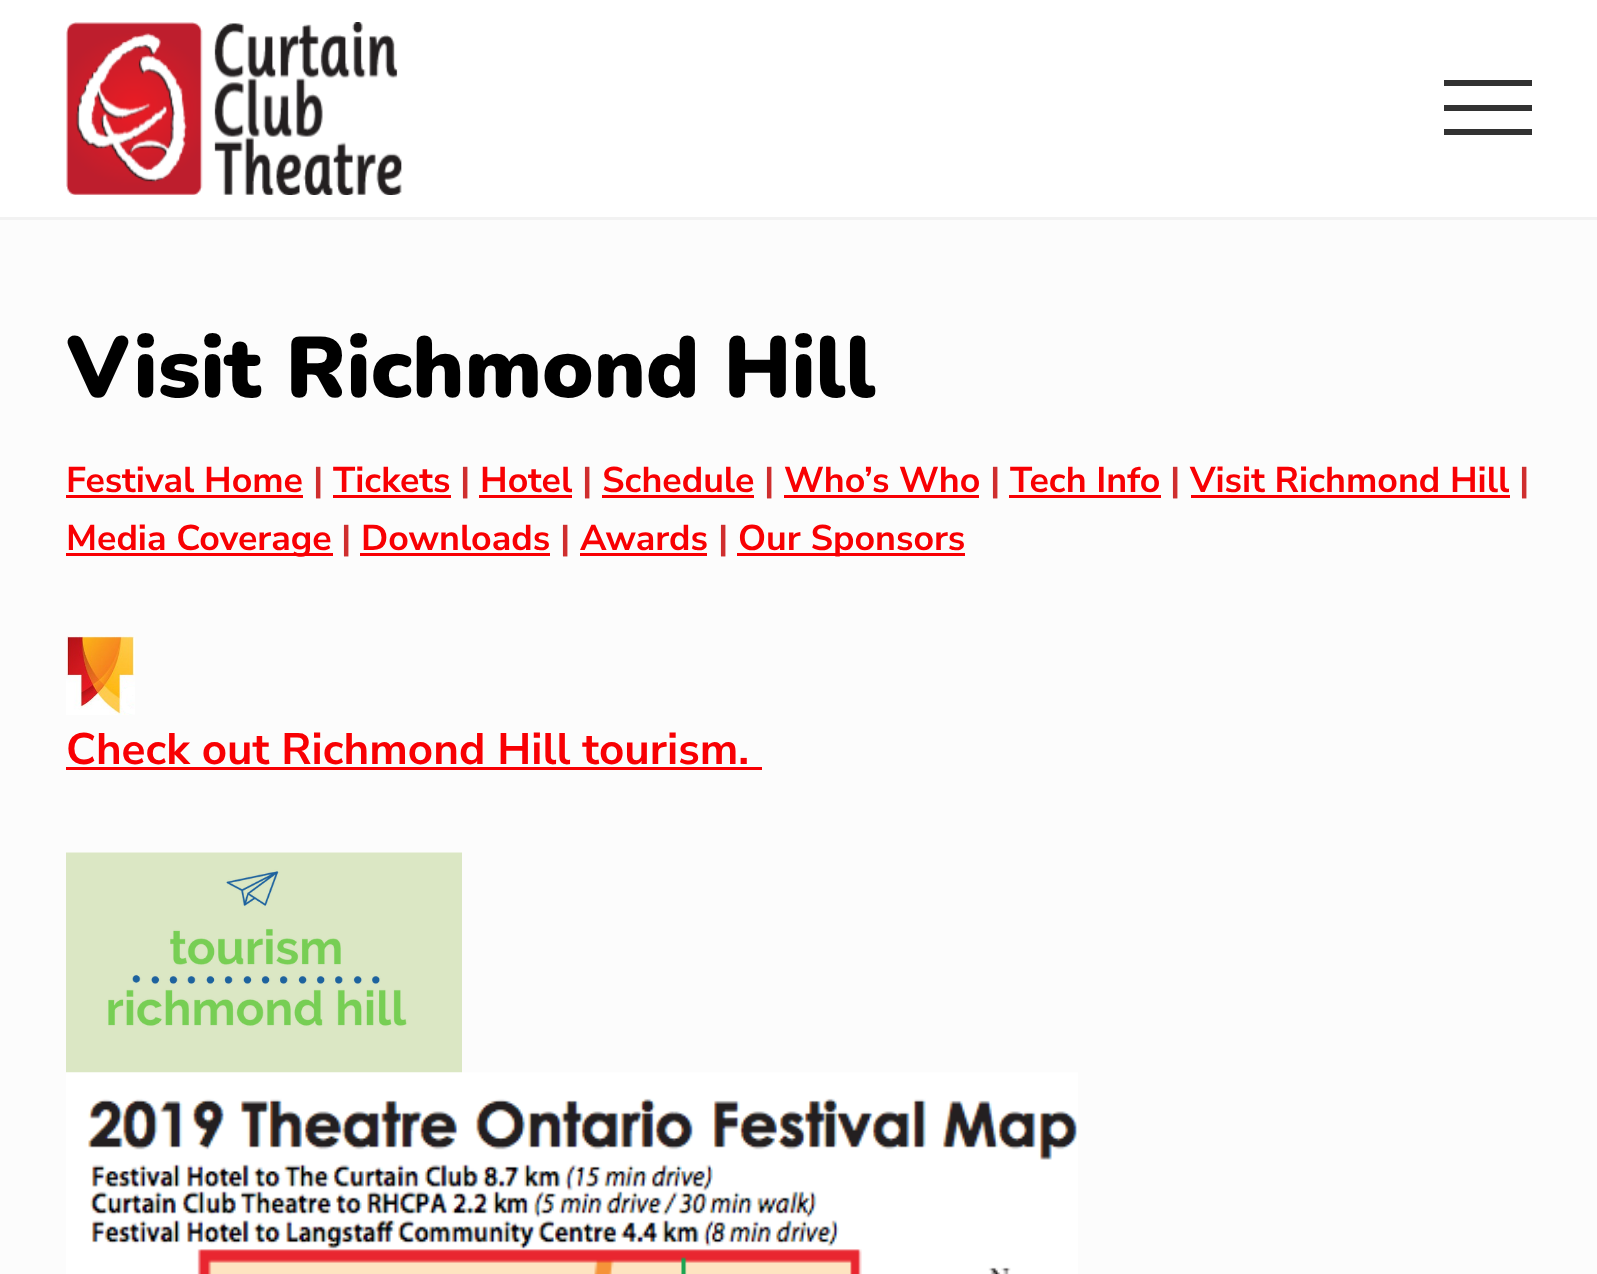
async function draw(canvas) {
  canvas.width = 1597
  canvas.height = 1274
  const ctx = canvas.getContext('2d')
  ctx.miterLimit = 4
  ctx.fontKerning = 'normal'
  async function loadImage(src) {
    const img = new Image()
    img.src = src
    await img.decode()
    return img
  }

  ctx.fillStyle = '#fcfcfc'
  ctx.fillRect(0, 0, 1597, 1274)
  ctx.fillStyle = '#fff'
  ctx.fillRect(0, 0, 1597, 217)
  ctx.fillStyle = '#f2f2f2'
  ctx.fillRect(0, 217, 1597, 3)
  ctx.drawImage(await loadImage('image0.png'), 66, 22, 336, 173)
  ctx.fillStyle = '#323232'
  ctx.fillRect(1444, 105, 88, 6)
  ctx.fillRect(1444, 80, 88, 6)
  ctx.fillRect(1444, 129, 88, 6)
  ctx.font = '900 86px Nunito'
  ctx.fillStyle = '#000'
  ctx.fillText('Visit Richmond Hill', 66, 397)
  ctx.font = 'bold 35.75px Nunito Sans'
  ctx.fillStyle = '#f80003'
  ctx.fillText('Festival Home', 66, 492)
  ctx.fillRect(66, 495, 237, 3)
  ctx.fillStyle = '#cf2e2e'
  ctx.fillText('|', 313, 492)
  ctx.fillStyle = '#f80003'
  ctx.fillText('Tickets', 333, 492)
  ctx.fillRect(333, 495, 118, 3)
  ctx.fillStyle = '#cf2e2e'
  ctx.fillText('|', 460, 492)
  ctx.fillStyle = '#f80003'
  ctx.fillText('Hotel', 480, 492)
  ctx.fillRect(479, 495, 93, 3)
  ctx.fillStyle = '#cf2e2e'
  ctx.fillText('|', 582, 492)
  ctx.fillStyle = '#f80003'
  ctx.fillText('Schedule', 602, 492)
  ctx.fillRect(602, 495, 152, 3)
  ctx.fillStyle = '#cf2e2e'
  ctx.fillText('|', 764, 492)
  ctx.fillStyle = '#f80003'
  ctx.fillText('Who’s Who', 784, 492)
  ctx.fillRect(784, 495, 195, 3)
  ctx.fillStyle = '#cf2e2e'
  ctx.fillText('|', 990, 492)
  ctx.fillStyle = '#f80003'
  ctx.fillText('Tech Info', 1010, 492)
  ctx.fillRect(1009, 495, 152, 3)
  ctx.fillStyle = '#cf2e2e'
  ctx.fillText('|', 1170, 492)
  ctx.fillStyle = '#f80003'
  ctx.fillText('Visit Richmond Hill', 1190, 492)
  ctx.fillRect(1191, 495, 319, 3)
  ctx.fillStyle = '#cf2e2e'
  ctx.fillText('|', 1519, 492)
  ctx.fillStyle = '#f80003'
  ctx.fillRect(66, 553, 267, 3)
  ctx.fillText('Media Coverage', 66, 550)
  ctx.fillStyle = '#cf2e2e'
  ctx.fillText('|', 341, 550)
  ctx.fillStyle = '#f80003'
  ctx.fillText('Downloads', 361, 550)
  ctx.fillRect(360, 553, 190, 3)
  ctx.fillStyle = '#cf2e2e'
  ctx.fillText('|', 560, 550)
  ctx.fillStyle = '#f80003'
  ctx.fillText('Awards', 580, 550)
  ctx.fillRect(580, 553, 127, 3)
  ctx.fillStyle = '#cf2e2e'
  ctx.fillText('|', 718, 550)
  ctx.fillStyle = '#f80003'
  ctx.fillRect(737, 553, 228, 3)
  ctx.fillText('Our Sponsors', 738, 550)
  ctx.drawImage(await loadImage('image1.png'), 66, 636, 69, 79)
  ctx.font = 'bold 44px Nunito Sans'
  ctx.fillText('Check out Richmond Hill tourism.', 66, 764)
  ctx.fillRect(66, 767, 696, 3)
  ctx.drawImage(await loadImage('image2.png'), 66, 852, 396, 221)
  ctx.drawImage(await loadImage('image3.png'), 66, 1072, 1012, 202)
}

draw(document.querySelector('canvas'))
